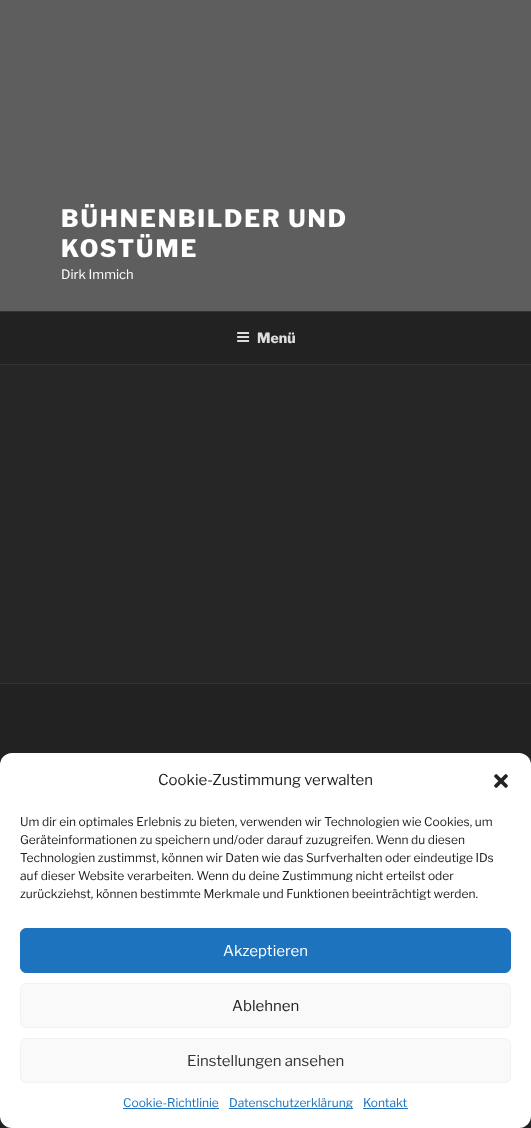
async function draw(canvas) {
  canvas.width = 531
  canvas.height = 1128
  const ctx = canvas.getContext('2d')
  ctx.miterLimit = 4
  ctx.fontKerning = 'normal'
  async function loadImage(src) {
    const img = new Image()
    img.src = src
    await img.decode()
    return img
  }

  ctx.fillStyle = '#222'
  ctx.fillRect(0, 0, 531, 1128)
  ctx.fillStyle = '#5e5e5e'
  ctx.fillRect(0, 0, 531, 311)
  ctx.letterSpacing = '1.9px'
  ctx.font = '100 24px Libre Franklin'
  ctx.fillStyle = '#fff'
  ctx.fillText('BÜHNENBILDER UND', 61, 227)
  ctx.fillText('KOSTÜME', 61, 257)
  ctx.letterSpacing = '0px'
  ctx.font = '100 13px "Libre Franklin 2"'
  ctx.fillText('Dirk Immich', 61, 279)
  ctx.fillStyle = '#333'
  ctx.fillRect(0, 311, 531, 1)
  ctx.fillRect(0, 364, 531, 1)
  ctx.drawImage(await loadImage('image0.png'), 237, 332, 13, 10)
  ctx.font = '100 14px Libre Franklin'
  ctx.fillStyle = '#ddd'
  ctx.fillText('Menü', 257, 343)
  ctx.fillStyle = '#262626'
  ctx.fillRect(0, 365, 531, 318)
  ctx.fillStyle = '#333'
  ctx.fillRect(0, 683, 531, 1)
  ctx.fillStyle = '#fff'
  ctx.beginPath()
  ctx.roundRect(0, 753, 531, 375, 12)
  ctx.fill()
  ctx.font = '100 15px "Libre Franklin 2"'
  ctx.fillStyle = '#222'
  ctx.fillText('Cookie-Zustimmung verwalten', 158, 785)
  ctx.drawImage(await loadImage('image1.png'), 494, 774, 14, 14)
  ctx.font = '100 12px "Libre Franklin 2"'
  ctx.fillText('Um dir ein optimales Erlebnis zu bieten, verwenden wir Technologien wie Cookies, um', 20, 826)
  ctx.fillText('Geräteinformationen zu speichern und/oder darauf zuzugreifen. Wenn du diesen', 20, 844)
  ctx.fillText('Technologien zustimmst, können wir Daten wie das Surfverhalten oder eindeutige IDs', 20, 862)
  ctx.fillText('auf dieser Website verarbeiten. Wenn du deine Zustimmung nicht erteilst oder', 20, 880)
  ctx.fillText('zurückziehst, können bestimmte Merkmale und Funktionen beeinträchtigt werden.', 20, 898)
  ctx.fillStyle = '#1e73be'
  ctx.beginPath()
  ctx.roundRect(20.5, 928.5, 490, 44, 5.5)
  ctx.fill()
  ctx.strokeStyle = '#1e73be'
  ctx.stroke()
  ctx.font = '100 15px "Libre Franklin 2"'
  ctx.fillStyle = '#fff'
  ctx.fillText('Akzeptieren', 223, 956)
  ctx.fillStyle = '#f9f9f9'
  ctx.beginPath()
  ctx.roundRect(20.5, 983.5, 490, 44, 5.5)
  ctx.fill()
  ctx.strokeStyle = '#f2f2f2'
  ctx.stroke()
  ctx.fillStyle = '#222'
  ctx.fillText('Ablehnen', 232, 1011)
  ctx.fillStyle = '#f9f9f9'
  ctx.beginPath()
  ctx.roundRect(20.5, 1038.5, 490, 44, 5.5)
  ctx.fill()
  ctx.stroke()
  ctx.fillStyle = '#333'
  ctx.fillText('Einstellungen ansehen', 187, 1066)
  ctx.font = '100 12px "Libre Franklin 2"'
  ctx.fillStyle = '#1e73be'
  ctx.fillText('Cookie-Richtlinie', 123, 1107)
  ctx.fillRect(123, 1108, 96, 1)
  ctx.fillRect(229, 1108, 124, 1)
  ctx.fillText('Datenschutzerklärung', 229, 1107)
  ctx.fillText('Kontakt', 363, 1107)
  ctx.fillRect(363, 1108, 45, 1)
}

draw(document.querySelector('canvas'))
